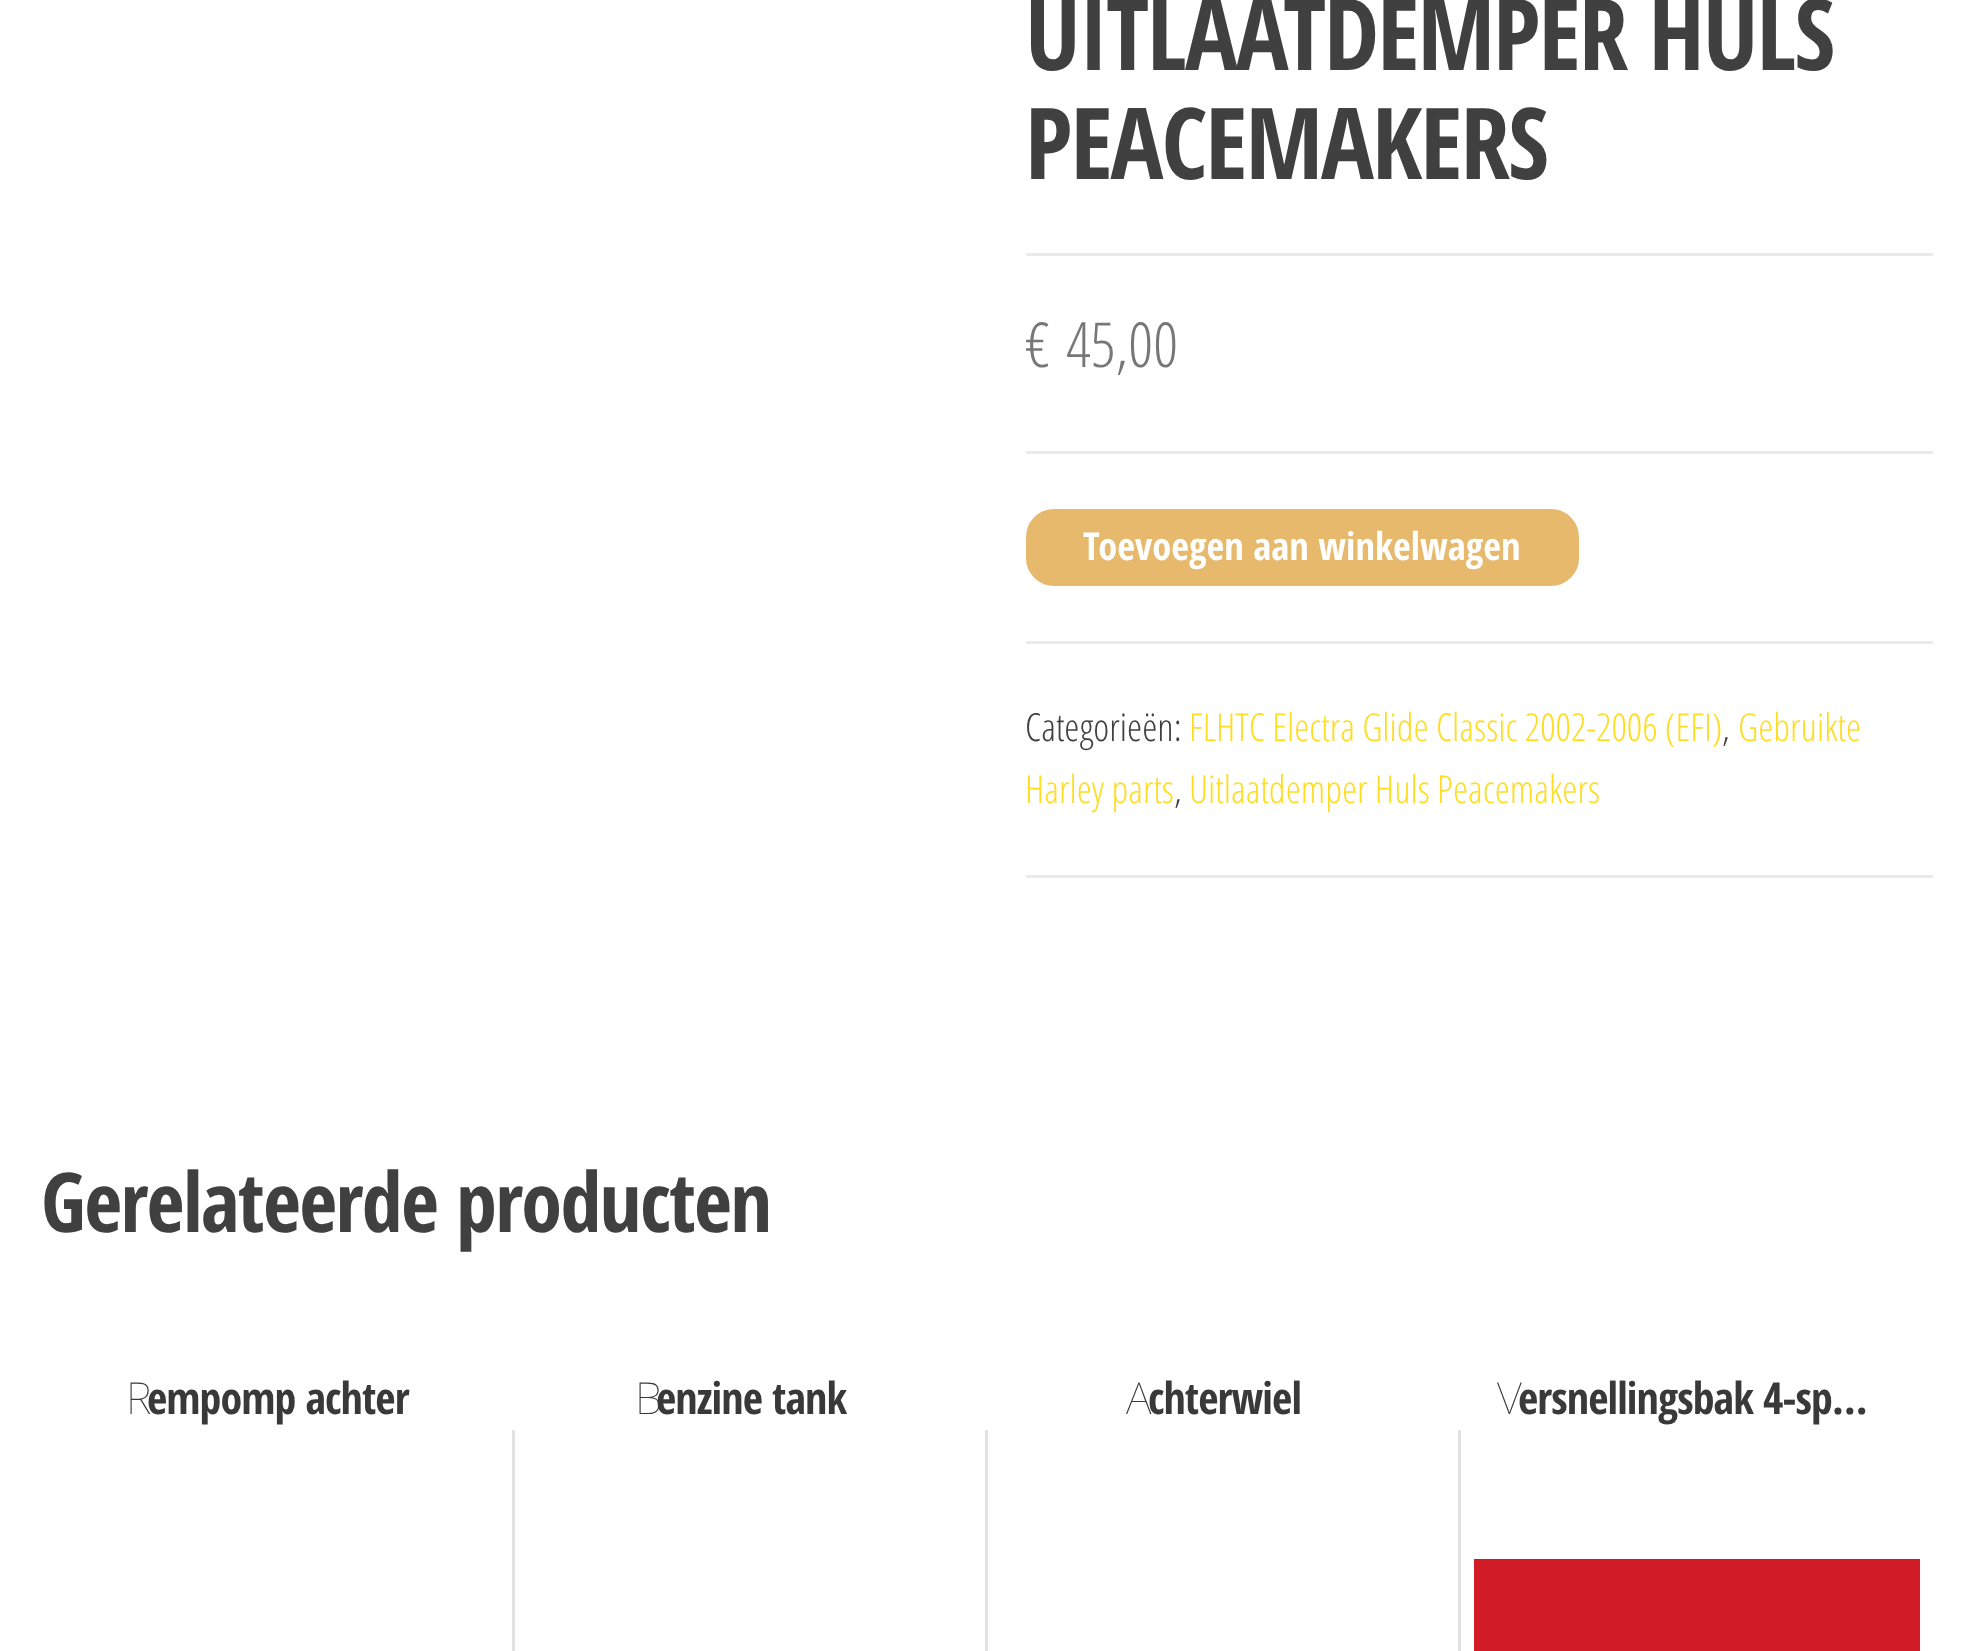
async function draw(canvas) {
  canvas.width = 1973
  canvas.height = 1651
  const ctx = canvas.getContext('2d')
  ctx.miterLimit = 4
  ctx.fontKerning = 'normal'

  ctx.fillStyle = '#fff'
  ctx.fillRect(0, 0, 1973, 1651)
  ctx.fillStyle = '#eaeaea'
  ctx.fillRect(1026, 253, 907, 3)
  ctx.letterSpacing = '-2px'
  ctx.font = 'bold 99px Open Sans Condensed'
  ctx.fillStyle = '#404040'
  ctx.fillText('UITLAATDEMPER HULS', 1025, 70)
  ctx.fillText('PEACEMAKERS', 1025, 179)
  ctx.letterSpacing = '0px'
  ctx.font = '300 62px Open Sans Condensed'
  ctx.fillStyle = '#777'
  ctx.fillText('€', 1025, 367)
  ctx.fillText('45,00', 1066, 367)
  ctx.fillStyle = '#eaeaea'
  ctx.fillRect(1026, 451, 907, 3)
  ctx.fillRect(1026, 641, 907, 3)
  ctx.fillStyle = '#e6b96d'
  ctx.beginPath()
  ctx.roundRect(1027.5, 510.5, 550, 74, 26.5)
  ctx.fill()
  ctx.strokeStyle = '#e6b96d'
  ctx.lineWidth = 3
  ctx.stroke()
  ctx.font = 'bold 38.5px Open Sans Condensed'
  ctx.fillStyle = '#fff'
  ctx.fillText('Toevoegen aan winkelwagen', 1083, 560)
  ctx.fillStyle = '#eaeaea'
  ctx.fillRect(1026, 875, 907, 3)
  ctx.font = '300 38.5px Open Sans Condensed'
  ctx.fillStyle = '#404040'
  ctx.fillText('Categorieën:', 1025, 741)
  ctx.fillStyle = '#fd2'
  ctx.fillText('FLHTC Electra Glide Classic 2002-2006 (EFI)', 1189, 741)
  ctx.fillStyle = '#404040'
  ctx.fillText(',', 1722, 741)
  ctx.fillStyle = '#fd2'
  ctx.fillText('Gebruikte', 1738, 741)
  ctx.fillText('Harley parts', 1025, 803)
  ctx.fillStyle = '#404040'
  ctx.fillText(',', 1174, 803)
  ctx.fillStyle = '#fd2'
  ctx.fillText('Uitlaatdemper Huls Peacemakers', 1189, 803)
  ctx.letterSpacing = '-1.65px'
  ctx.font = 'bold 82.5px Open Sans Condensed'
  ctx.fillStyle = '#404040'
  ctx.fillText('Gerelateerde producten', 41, 1232)
  ctx.letterSpacing = '-0.9px'
  ctx.font = '100 44px Noto Sans'
  ctx.fillStyle = '#39393a'
  ctx.fillText('R', 126, 1414)
  ctx.font = 'bold 44px Open Sans Condensed'
  ctx.fillText('empomp achter', 147, 1414)
  ctx.fillStyle = '#e2e2e2'
  ctx.fillRect(512, 1430, 3, 221)
  ctx.font = '100 44px Noto Sans'
  ctx.fillStyle = '#39393a'
  ctx.fillText('B', 635, 1414)
  ctx.font = 'bold 44px Open Sans Condensed'
  ctx.fillText('enzine tank', 656, 1414)
  ctx.fillStyle = '#e2e2e2'
  ctx.fillRect(985, 1430, 3, 221)
  ctx.font = '100 44px Noto Sans'
  ctx.fillStyle = '#39393a'
  ctx.fillText('A', 1126, 1414)
  ctx.font = 'bold 44px Open Sans Condensed'
  ctx.fillText('chterwiel', 1148, 1414)
  ctx.fillStyle = '#e2e2e2'
  ctx.fillRect(1458, 1430, 3, 221)
  ctx.font = '100 44px Noto Sans'
  ctx.fillStyle = '#39393a'
  ctx.fillText('V', 1497, 1414)
  ctx.font = 'bold 44px Open Sans Condensed'
  ctx.fillText('ersnellingsbak 4-sp…', 1518, 1414)
  ctx.fillStyle = '#d11c27'
  ctx.fillRect(1474, 1559, 446, 92)
}

draw(document.querySelector('canvas'))
